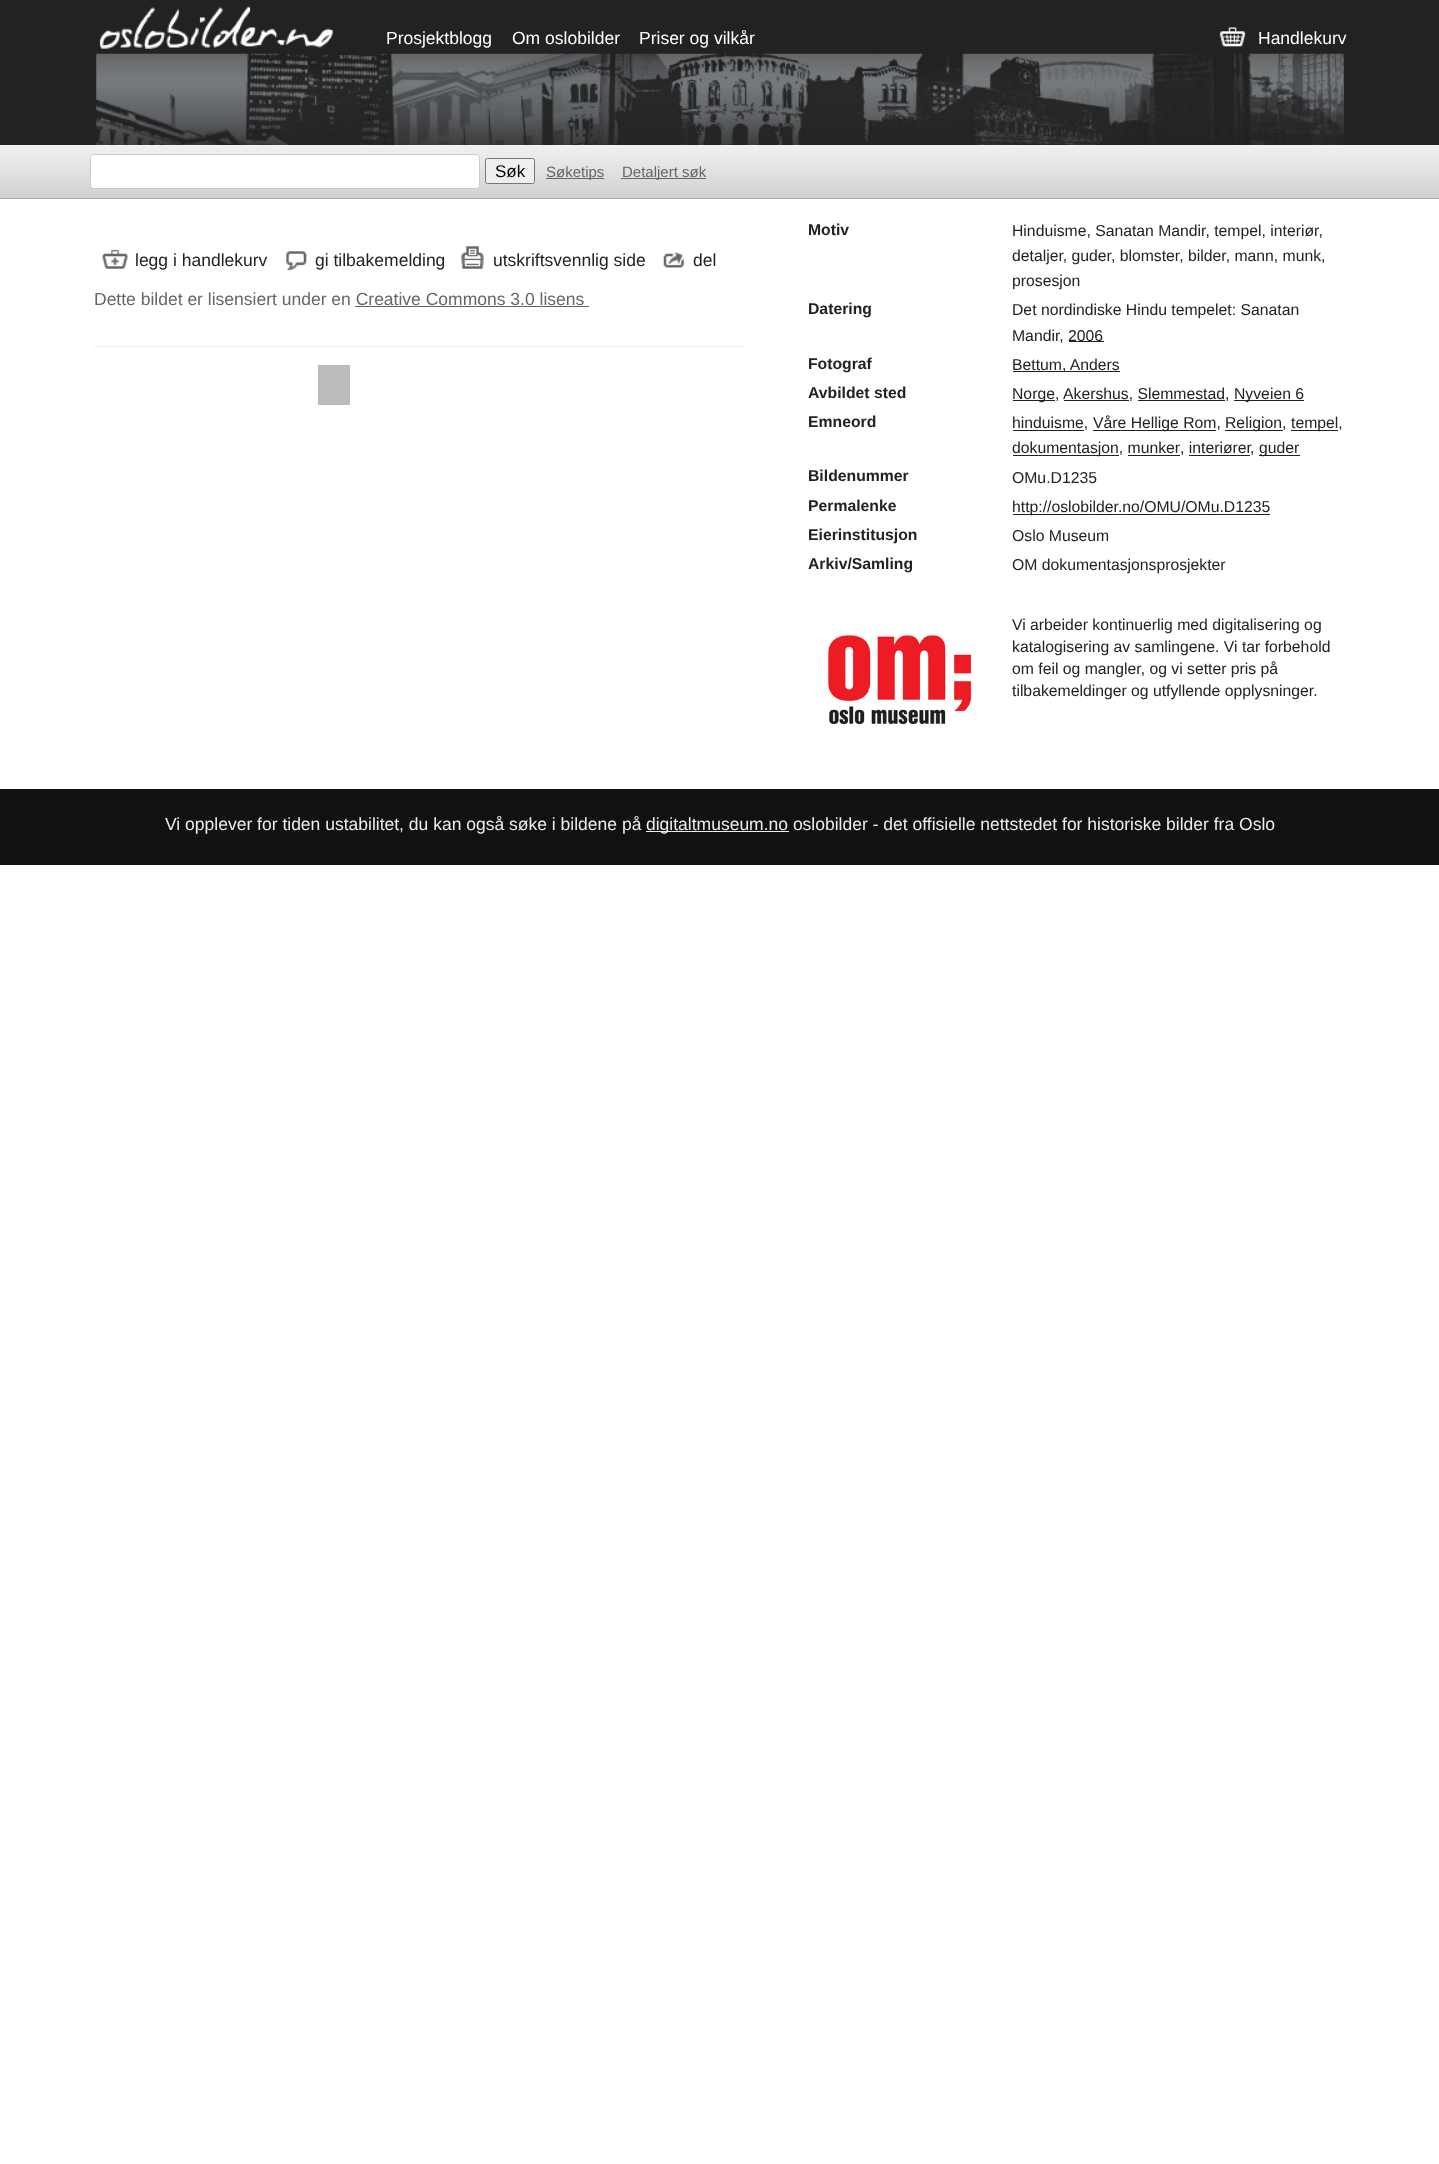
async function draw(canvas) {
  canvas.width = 1439
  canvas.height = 2164
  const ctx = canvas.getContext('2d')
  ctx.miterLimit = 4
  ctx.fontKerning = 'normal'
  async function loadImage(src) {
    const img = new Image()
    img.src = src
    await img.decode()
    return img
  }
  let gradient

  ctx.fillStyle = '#fff'
  ctx.fillRect(0, 0, 1439, 2164)
  ctx.fillStyle = '#222'
  ctx.fillRect(0, 0, 1439, 145)
  ctx.drawImage(await loadImage('image0.png'), 96, 53, 1248, 92)
  ctx.drawImage(await loadImage('image1.png'), 99, 6, 235, 43)
  ctx.font = '17.5px Liberation Sans'
  ctx.fillStyle = '#fff'
  ctx.fillText('Prosjektblogg', 386, 44)
  ctx.fillText('Om oslobilder', 512, 44)
  ctx.fillText('Priser og vilkår', 639, 44)
  ctx.drawImage(await loadImage('image2.png'), 1219, 27, 27, 20)
  ctx.fillText('Handlekurv', 1258, 44)
  gradient = ctx.createLinearGradient(720, 145, 720, 198)
  gradient.addColorStop(0, '#f1f1f1')
  gradient.addColorStop(1, '#d1d1d1')
  ctx.fillStyle = gradient
  ctx.fillRect(0, 145, 1439, 53)
  ctx.fillStyle = '#aaa'
  ctx.fillRect(0, 198, 1439, 1)
  ctx.fillStyle = '#fff'
  ctx.beginPath()
  ctx.roundRect(90.5, 154.5, 389, 34, 3.5)
  ctx.fill()
  ctx.strokeStyle = '#ccc'
  ctx.stroke()
  ctx.fillStyle = '#efefef'
  ctx.beginPath()
  ctx.roundRect(485.5, 158.5, 49, 25, 2)
  ctx.fill()
  ctx.strokeStyle = '#767676'
  ctx.stroke()
  ctx.font = '17px Liberation Sans'
  ctx.fillStyle = '#000'
  ctx.fillText('Søk', 495, 177)
  ctx.fillStyle = '#666'
  ctx.fillRect(546, 178, 58, 1)
  ctx.font = '15px Liberation Sans'
  ctx.fillText('Søketips', 546, 177)
  ctx.fillRect(621, 178, 85, 1)
  ctx.fillText('Detaljert søk', 622, 177)
  ctx.drawImage(await loadImage('image3.png'), 102, 249, 26, 20)
  ctx.font = '17.5px Liberation Sans'
  ctx.fillStyle = '#222'
  ctx.fillText('legg i handlekurv', 135, 266)
  ctx.drawImage(await loadImage('image4.png'), 286, 251, 21, 20)
  ctx.fillText('gi tilbakemelding', 315, 266)
  ctx.drawImage(await loadImage('image5.png'), 461, 246, 23, 23)
  ctx.fillText('utskriftsvennlig side', 493, 266)
  ctx.drawImage(await loadImage('image6.png'), 663, 252, 21, 16)
  ctx.fillText('del', 693, 266)
  ctx.fillStyle = '#666'
  ctx.fillText('Dette bildet er lisensiert under en Creative Commons 3.0 lisens', 94, 305)
  ctx.fillRect(355, 306, 234, 1)
  ctx.fillStyle = '#eee'
  ctx.fillRect(94, 346, 651, 1)
  ctx.fillStyle = '#bbb'
  ctx.fillRect(318, 365, 32, 40)
  ctx.font = 'bold 15.75px Liberation Sans'
  ctx.fillStyle = '#222'
  ctx.fillText('Motiv', 808, 235)
  ctx.font = '15.75px Liberation Sans'
  ctx.fillText('Hinduisme, Sanatan Mandir, tempel, interiør,', 1012, 236)
  ctx.fillText('detaljer, guder, blomster, bilder, mann, munk,', 1012, 261)
  ctx.fillText('prosesjon', 1012, 286)
  ctx.font = 'bold 15.75px Liberation Sans'
  ctx.fillText('Datering', 808, 314)
  ctx.font = '15.75px Liberation Sans'
  ctx.fillText('Det nordindiske Hindu tempelet: Sanatan', 1012, 315)
  ctx.fillText('Mandir,', 1012, 341)
  ctx.fillRect(1069, 341, 35, 1)
  ctx.fillText('2006', 1068, 341)
  ctx.font = 'bold 15.75px Liberation Sans'
  ctx.fillText('Fotograf', 808, 369)
  ctx.fillRect(1013, 371, 107, 1)
  ctx.font = '15.75px Liberation Sans'
  ctx.fillText('Bettum, Anders', 1012, 370)
  ctx.font = 'bold 15.75px Liberation Sans'
  ctx.fillText('Avbildet sted', 808, 398)
  ctx.fillRect(1013, 400, 42, 1)
  ctx.font = '15.75px Liberation Sans'
  ctx.fillText('Norge,', 1012, 399)
  ctx.fillRect(1064, 400, 65, 1)
  ctx.fillText('Akershus, Slemmestad,', 1063, 399)
  ctx.fillRect(1234, 400, 70, 1)
  ctx.fillText('Nyveien 6', 1234, 399)
  ctx.fillRect(1138, 400, 87, 1)
  ctx.font = 'bold 15.75px Liberation Sans'
  ctx.fillText('Emneord', 808, 427)
  ctx.font = '15.75px Liberation Sans'
  ctx.fillText('hinduisme,', 1012, 428)
  ctx.fillRect(1013, 430, 71, 1)
  ctx.fillRect(1093, 430, 123, 1)
  ctx.fillText('Våre Hellige Rom,', 1093, 428)
  ctx.fillRect(1225, 430, 58, 1)
  ctx.fillText('Religion,', 1225, 428)
  ctx.fillRect(1291, 430, 47, 1)
  ctx.fillText('tempel,', 1291, 428)
  ctx.fillRect(1013, 455, 106, 1)
  ctx.fillText('dokumentasjon, munker', 1012, 453)
  ctx.fillText(', interiører', 1180, 453)
  ctx.fillText(',', 1250, 453)
  ctx.fillRect(1259, 455, 41, 1)
  ctx.fillText('guder', 1259, 453)
  ctx.fillRect(1128, 455, 52, 1)
  ctx.fillRect(1189, 455, 61, 1)
  ctx.font = 'bold 15.75px Liberation Sans'
  ctx.fillText('Bildenummer', 808, 481)
  ctx.font = '15.75px Liberation Sans'
  ctx.fillText('OMu.D1235', 1012, 483)
  ctx.font = 'bold 15.75px Liberation Sans'
  ctx.fillText('Permalenke', 808, 511)
  ctx.fillRect(1013, 514, 257, 1)
  ctx.font = '15.75px Liberation Sans'
  ctx.fillText('http://oslobilder.no/OMU/OMu.D1235', 1012, 512)
  ctx.font = 'bold 15.75px Liberation Sans'
  ctx.fillText('Eierinstitusjon', 808, 540)
  ctx.font = '15.75px Liberation Sans'
  ctx.fillText('Oslo Museum', 1012, 541)
  ctx.font = 'bold 15.75px Liberation Sans'
  ctx.fillText('Arkiv/Samling', 808, 569)
  ctx.font = '15.75px Liberation Sans'
  ctx.fillText('OM dokumentasjonsprosjekter', 1012, 570)
  ctx.drawImage(await loadImage('image7.png'), 828, 635, 144, 90)
  ctx.fillText('Vi arbeider kontinuerlig med digitalisering og', 1012, 630)
  ctx.fillText('katalogisering av samlingene. Vi tar forbehold', 1012, 652)
  ctx.fillText('om feil og mangler, og vi setter pris på', 1012, 674)
  ctx.fillText('tilbakemeldinger og utfyllende opplysninger.', 1012, 696)
  ctx.fillStyle = '#111'
  ctx.fillRect(0, 789, 1439, 76)
  ctx.font = '17.5px Liberation Sans'
  ctx.fillStyle = '#eee'
  ctx.fillText('Vi opplever for tiden ustabilitet, du kan også søke i bildene på', 165, 830)
  ctx.fillRect(646, 831, 143, 1)
  ctx.fillText('digitaltmuseum.no oslobilder - det offisielle nettstedet for historiske bilder fra Oslo', 646, 830)
}

draw(document.querySelector('canvas'))
